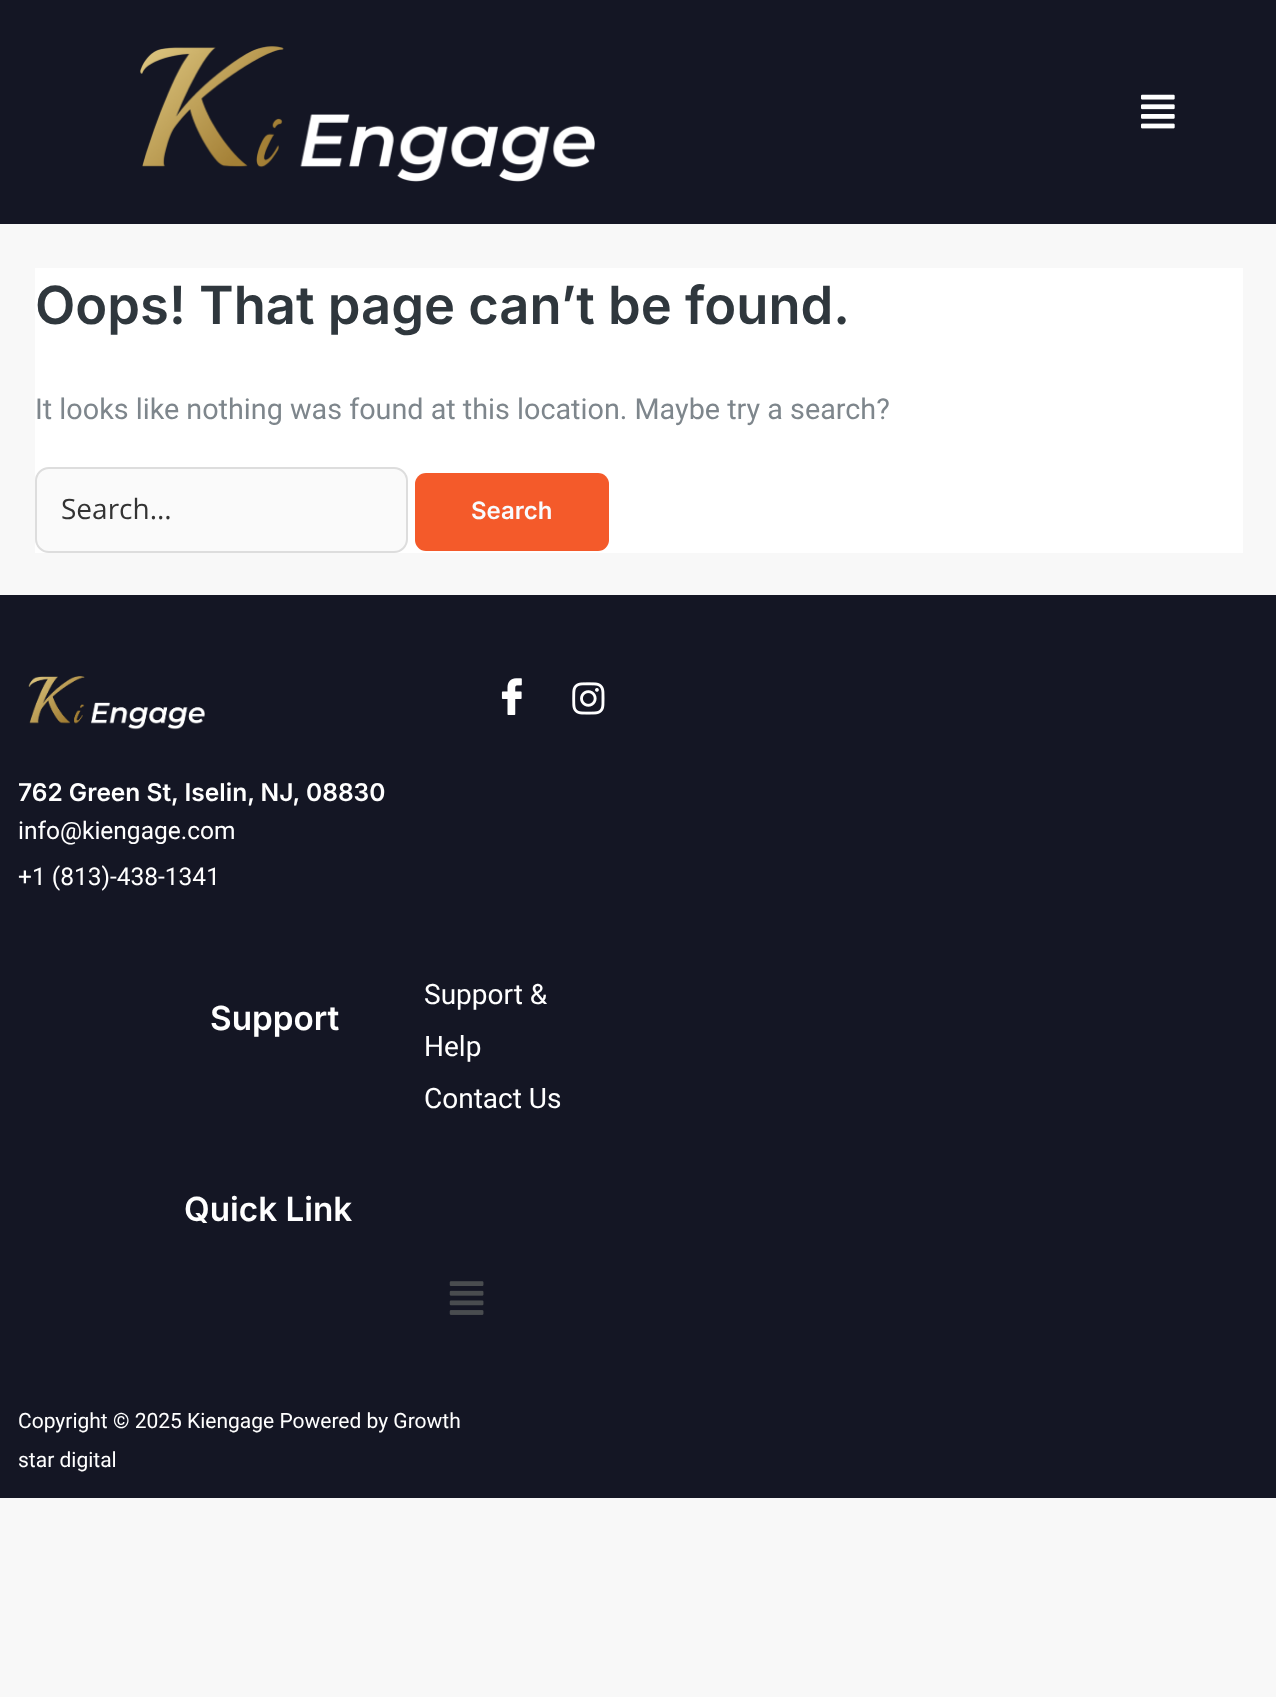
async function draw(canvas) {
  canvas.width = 1276
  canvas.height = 1697
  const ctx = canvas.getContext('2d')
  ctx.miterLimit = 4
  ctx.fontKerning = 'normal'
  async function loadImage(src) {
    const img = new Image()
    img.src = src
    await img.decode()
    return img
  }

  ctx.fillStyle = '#f8f8f8'
  ctx.fillRect(0, 0, 1276, 1697)
  ctx.fillStyle = '#141624'
  ctx.fillRect(0, 0, 1276, 224)
  ctx.drawImage(await loadImage('image0.png'), 140, 46, 455, 136)
  ctx.drawImage(await loadImage('image1.png'), 1141, 94, 34, 35)
  ctx.fillStyle = '#fff'
  ctx.fillRect(35, 268, 1208, 285)
  ctx.font = '600 52.5px Inter'
  ctx.fillStyle = '#2f373d'
  ctx.fillText('Oops! That page can’t be found.', 35, 324)
  ctx.font = '28.75px Roboto'
  ctx.fillStyle = '#7e868c'
  ctx.fillText('It looks like nothing was found at this location. Maybe try a search?', 35, 419)
  ctx.fillStyle = '#fafafa'
  ctx.beginPath()
  ctx.roundRect(36, 468, 371, 84, 13)
  ctx.fill()
  ctx.strokeStyle = '#ddd'
  ctx.lineWidth = 2
  ctx.stroke()
  ctx.font = '28px Open Sans'
  ctx.fillStyle = '#333'
  ctx.fillText('Search...', 61, 519)
  ctx.fillStyle = '#f45a2a'
  ctx.beginPath()
  ctx.roundRect(415, 473, 194, 78, 11)
  ctx.fill()
  ctx.font = '600 24px Inter'
  ctx.fillStyle = '#f8fbfe'
  ctx.fillText('Search', 471, 519)
  ctx.fillStyle = '#141624'
  ctx.fillRect(0, 595, 1276, 903)
  ctx.drawImage(await loadImage('image2.png'), 501, 678, 21, 37)
  ctx.drawImage(await loadImage('image3.png'), 572, 682, 33, 33)
  ctx.drawImage(await loadImage('image4.png'), 28, 676, 177, 54)
  ctx.font = '600 24.5px Inter'
  ctx.fillStyle = '#fff'
  ctx.fillText('762 Green St, Iselin, NJ, 08830', 18, 801)
  ctx.font = '24.5px Roboto'
  ctx.fillText('info@kiengage.com', 18, 839)
  ctx.fillText('+1 (813)-438-1341', 18, 885)
  ctx.font = '600 33.25px Inter'
  ctx.fillText('Support', 210, 1030)
  ctx.font = '28px Roboto'
  ctx.fillText('Support &', 424, 1004)
  ctx.fillText('Help', 424, 1056)
  ctx.fillText('Contact Us', 424, 1108)
  ctx.font = '600 33.25px Inter'
  ctx.fillText('Quick Link', 184, 1221)
  ctx.drawImage(await loadImage('image5.png'), 449, 1281, 35, 34)
  ctx.font = '21px Roboto'
  ctx.fillText('Copyright © 2025 Kiengage Powered by Growth', 18, 1428)
  ctx.fillText('star digital', 18, 1467)
}

draw(document.querySelector('canvas'))
